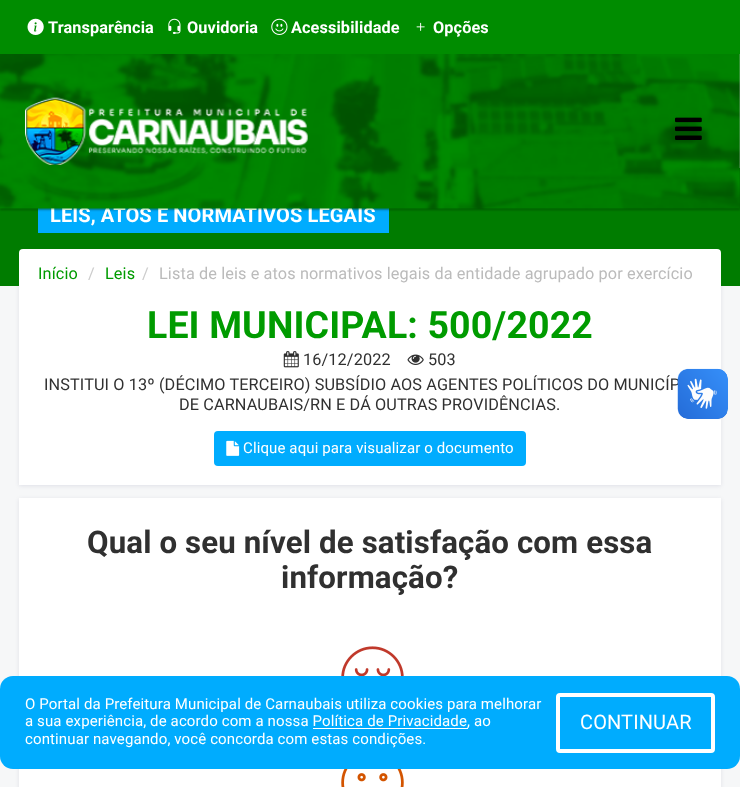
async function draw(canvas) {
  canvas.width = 740
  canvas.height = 787
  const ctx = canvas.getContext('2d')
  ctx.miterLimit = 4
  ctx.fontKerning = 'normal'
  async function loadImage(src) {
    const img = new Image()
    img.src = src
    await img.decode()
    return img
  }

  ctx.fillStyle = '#f6f7f8'
  ctx.fillRect(0, 0, 740, 787)
  ctx.fillStyle = '#03004717'
  ctx.filter = 'blur(2px)'
  ctx.beginPath()
  ctx.rect(19, 250, 702, 236)
  ctx.fill()
  ctx.filter = 'none'
  ctx.fillStyle = '#007c00'
  ctx.fillRect(0, 168, 740, 118)
  ctx.fillStyle = '#00acfe'
  ctx.fillRect(38, 208, 351, 25)
  ctx.fillStyle = '#0000004d'
  ctx.filter = 'blur(1px)'
  ctx.beginPath()
  ctx.rect(0, 1, 740, 209)
  ctx.fill()
  ctx.filter = 'none'
  ctx.letterSpacing = '0.12px'
  ctx.font = 'bold 20px Roboto'
  ctx.fillStyle = '#fff'
  ctx.fillText('LEIS, ATOS E NORMATIVOS LEGAIS', 50, 222)
  ctx.drawImage(await loadImage('image0.png'), 0, 54, 740, 156)
  ctx.fillStyle = '#008c00'
  ctx.fillRect(0, 0, 740, 54)
  ctx.drawImage(await loadImage('image1.png'), 27, 18, 17, 17)
  ctx.font = 'bold 16.25px Roboto'
  ctx.fillStyle = '#fff'
  ctx.fillText('Transparência', 48, 33)
  ctx.drawImage(await loadImage('image2.png'), 168, 18, 13, 16)
  ctx.fillText('Ouvidoria', 187, 33)
  ctx.drawImage(await loadImage('image3.png'), 271, 18, 17, 17)
  ctx.fillText('Acessibilidade', 291, 33)
  ctx.drawImage(await loadImage('image4.png'), 416, 22, 9, 9)
  ctx.fillText('Opções', 433, 33)
  ctx.drawImage(await loadImage('image5.png'), 25, 97, 283, 68)
  ctx.drawImage(await loadImage('image6.png'), 675, 117, 27, 23)
  ctx.fillRect(19, 295, 702, 190)
  ctx.beginPath()
  ctx.roundRect(19, 249, 702, 50, 4)
  ctx.fill()
  ctx.font = '16.25px Roboto'
  ctx.fillStyle = '#009b00'
  ctx.fillText('Início', 38, 279)
  ctx.fillStyle = '#ccc'
  ctx.fillText('/', 88, 279)
  ctx.fillStyle = '#009b00'
  ctx.fillText('Leis', 105, 279)
  ctx.fillStyle = '#ccc'
  ctx.fillText('/', 142, 279)
  ctx.fillStyle = '#bbb'
  ctx.fillText('Lista de leis e atos normativos legais da entidade agrupado por exercício', 159, 279)
  ctx.font = 'bold 37.5px Roboto'
  ctx.fillStyle = '#009b00'
  ctx.fillText('LEI MUNICIPAL: 500/2022', 147, 338)
  ctx.drawImage(await loadImage('image7.png'), 283, 351, 16, 17)
  ctx.font = '16.25px Roboto'
  ctx.fillStyle = '#303030'
  ctx.fillText('16/12/2022', 303, 365)
  ctx.drawImage(await loadImage('image8.png'), 407, 354, 17, 11)
  ctx.fillText('503', 428, 365)
  ctx.fillText('INSTITUI O 13º (DÉCIMO TERCEIRO) SUBSÍDIO AOS AGENTES POLÍTICOS DO MUNICÍP', 44, 390)
  ctx.fillText('DE CARNAUBAIS/RN E DÁ OUTRAS PROVIDÊNCIAS.', 179, 410)
  ctx.fillStyle = '#00acfe'
  ctx.beginPath()
  ctx.roundRect(214, 431, 312, 35, 4)
  ctx.fill()
  ctx.drawImage(await loadImage('image9.png'), 226, 440, 14, 16)
  ctx.font = '15px Roboto'
  ctx.fillStyle = '#fff'
  ctx.fillText('Clique aqui para visualizar o documento', 243, 453)
  ctx.drawImage(await loadImage('image10.png'), 677, 368, 51, 51)
  ctx.drawImage(await loadImage('image11.png'), 678, 369, 50, 50)
  ctx.fillStyle = '#03004717'
  ctx.filter = 'blur(2px)'
  ctx.beginPath()
  ctx.rect(19, 499, 702, 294)
  ctx.fill()
  ctx.filter = 'none'
  ctx.fillStyle = '#fff'
  ctx.fillRect(19, 498, 702, 289)
  ctx.font = 'bold 31.25px Roboto'
  ctx.fillStyle = '#303030'
  ctx.fillText('Qual o seu nível de satisfação com essa', 87, 553)
  ctx.fillText('informação?', 281, 588)
  ctx.drawImage(await loadImage('image12.png'), 341, 646, 63, 30)
  ctx.drawImage(await loadImage('image13.png'), 341, 769, 63, 18)
  ctx.fillStyle = '#00acfe'
  ctx.beginPath()
  ctx.roundRect(0, 676, 740, 93, 13)
  ctx.fill()
  ctx.font = '15px Roboto'
  ctx.fillStyle = '#fff'
  ctx.fillText('O Portal da Prefeitura Municipal de Carnaubais utiliza cookies para melhorar', 25, 709)
  ctx.fillText('a sua experiência, de acordo com a nossa Política de Privacidade', 25, 726)
  ctx.fillRect(313, 728, 155, 1)
  ctx.fillText(', ao', 467, 726)
  ctx.fillText('continuar navegando, você concorda com estas condições.', 25, 744)
  ctx.beginPath()
  ctx.roundRect(558, 695, 155, 56, 2)
  ctx.strokeStyle = '#fff'
  ctx.lineWidth = 4
  ctx.stroke()
  ctx.font = '20px Roboto'
  ctx.fillText('CONTINUAR', 580, 729)
}

draw(document.querySelector('canvas'))
